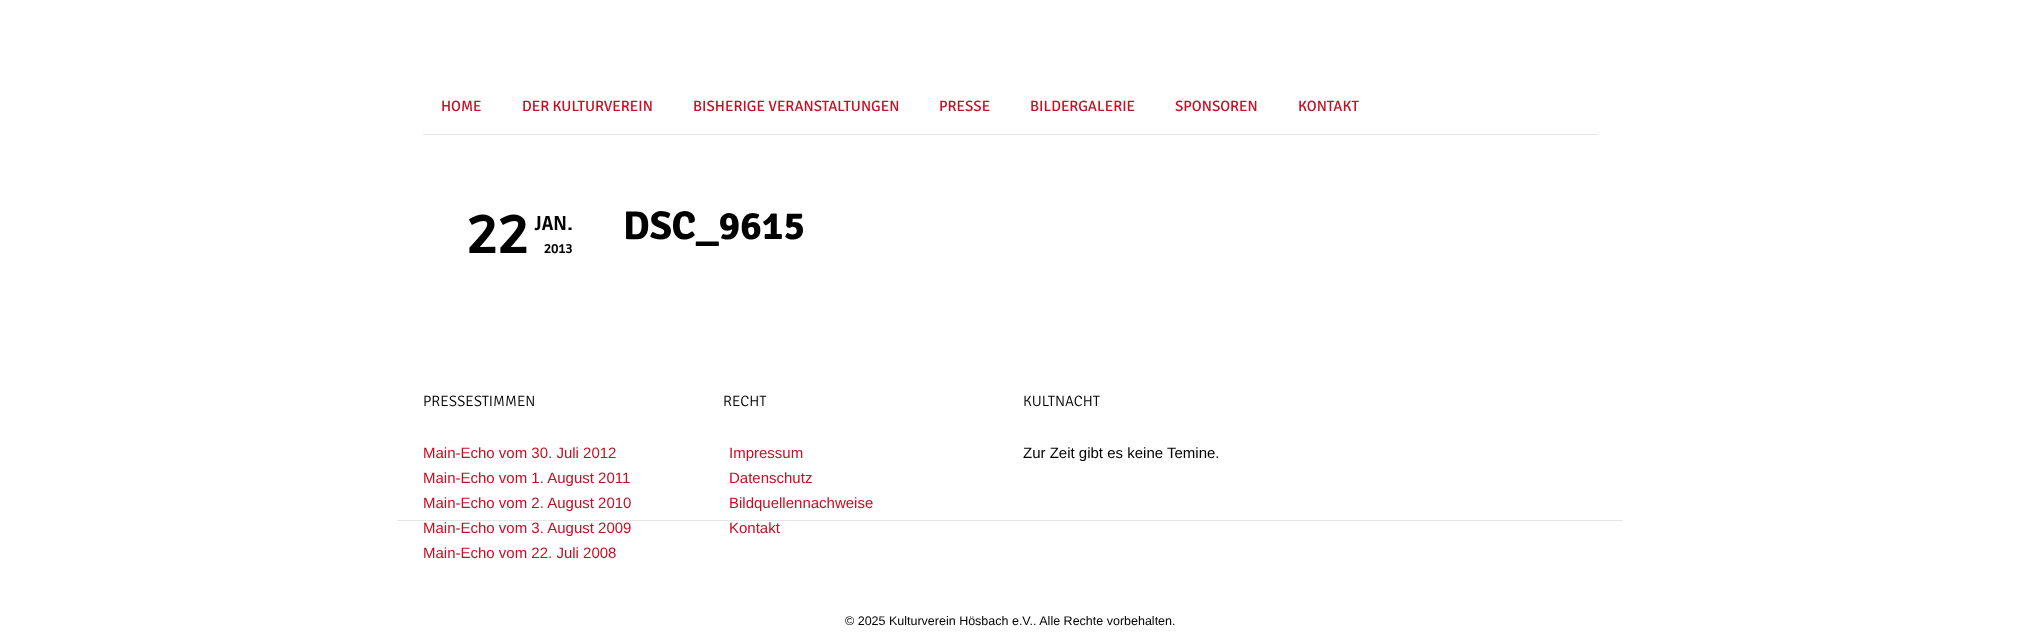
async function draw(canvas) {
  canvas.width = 2020
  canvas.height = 640
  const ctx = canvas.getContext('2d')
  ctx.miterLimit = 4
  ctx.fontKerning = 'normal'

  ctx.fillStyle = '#fff'
  ctx.fillRect(0, 0, 2020, 640)
  ctx.save()
  ctx.beginPath()
  ctx.moveTo(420, 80)
  ctx.lineTo(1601, 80)
  ctx.lineTo(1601, 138)
  ctx.lineTo(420, 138)
  ctx.closePath()
  ctx.moveTo(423, 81)
  ctx.lineTo(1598, 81)
  ctx.lineTo(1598, 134)
  ctx.lineTo(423, 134)
  ctx.closePath()
  ctx.clip('evenodd')
  ctx.fillStyle = '#0000001a'
  ctx.filter = 'blur(0.5px)'
  ctx.beginPath()
  ctx.rect(423, 83, 1175, 52)
  ctx.fill()
  ctx.filter = 'none'
  ctx.restore()
  ctx.font = '15px Signika'
  ctx.fillStyle = '#c40f24'
  ctx.fillText('HOME', 441, 111)
  ctx.fillText('DER KULTURVEREIN', 522, 111)
  ctx.fillText('BISHERIGE VERANSTALTUNGEN', 693, 111)
  ctx.fillText('PRESSE', 939, 111)
  ctx.fillText('BILDERGALERIE', 1030, 111)
  ctx.fillText('SPONSOREN', 1175, 111)
  ctx.fillText('KONTAKT', 1298, 111)
  ctx.save()
  ctx.beginPath()
  ctx.moveTo(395, 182)
  ctx.lineTo(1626, 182)
  ctx.lineTo(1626, 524)
  ctx.lineTo(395, 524)
  ctx.closePath()
  ctx.moveTo(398, 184)
  ctx.lineTo(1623, 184)
  ctx.lineTo(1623, 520)
  ctx.lineTo(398, 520)
  ctx.closePath()
  ctx.clip('evenodd')
  ctx.fillStyle = '#0000001a'
  ctx.filter = 'blur(0.5px)'
  ctx.beginPath()
  ctx.rect(398, 185, 1225, 336)
  ctx.fill()
  ctx.filter = 'none'
  ctx.restore()
  ctx.font = '800 54px Ruda'
  ctx.fillStyle = '#000'
  ctx.fillText('22', 467, 253)
  ctx.font = '800 20px Ruda'
  ctx.fillText('JAN.', 535, 230)
  ctx.font = '800 12.5px Ruda'
  ctx.fillText('2013', 544, 253)
  ctx.font = 'bold 40px Signika'
  ctx.fillText('DSC_9615', 623, 239)
  ctx.font = '300 15px Signika'
  ctx.fillText('PRESSESTIMMEN', 423, 406)
  ctx.font = '15px Liberation Sans'
  ctx.fillStyle = '#c40f24'
  ctx.fillText('Main-Echo vom 30. Juli 2012', 423, 458)
  ctx.fillText('Main-Echo vom 1. August 2011', 423, 483)
  ctx.fillText('Main-Echo vom 2. August 2010', 423, 508)
  ctx.fillText('Main-Echo vom 3. August 2009', 423, 533)
  ctx.fillText('Main-Echo vom 22. Juli 2008', 423, 558)
  ctx.font = '300 15px Signika'
  ctx.fillStyle = '#000'
  ctx.fillText('RECHT', 723, 406)
  ctx.font = '15px Liberation Sans'
  ctx.fillStyle = '#c40f24'
  ctx.fillText('Impressum', 729, 458)
  ctx.fillText('Datenschutz', 729, 483)
  ctx.fillText('Bildquellennachweise', 729, 508)
  ctx.fillText('Kontakt', 729, 533)
  ctx.font = '300 15px Signika'
  ctx.fillStyle = '#000'
  ctx.fillText('KULTNACHT', 1023, 406)
  ctx.font = '15px Liberation Sans'
  ctx.fillText('Zur Zeit gibt es keine Temine.', 1023, 458)
  ctx.font = '12.5px Liberation Sans'
  ctx.fillText('© 2025 Kulturverein Hösbach e.V.. Alle Rechte vorbehalten.', 845, 625)
}

draw(document.querySelector('canvas'))
